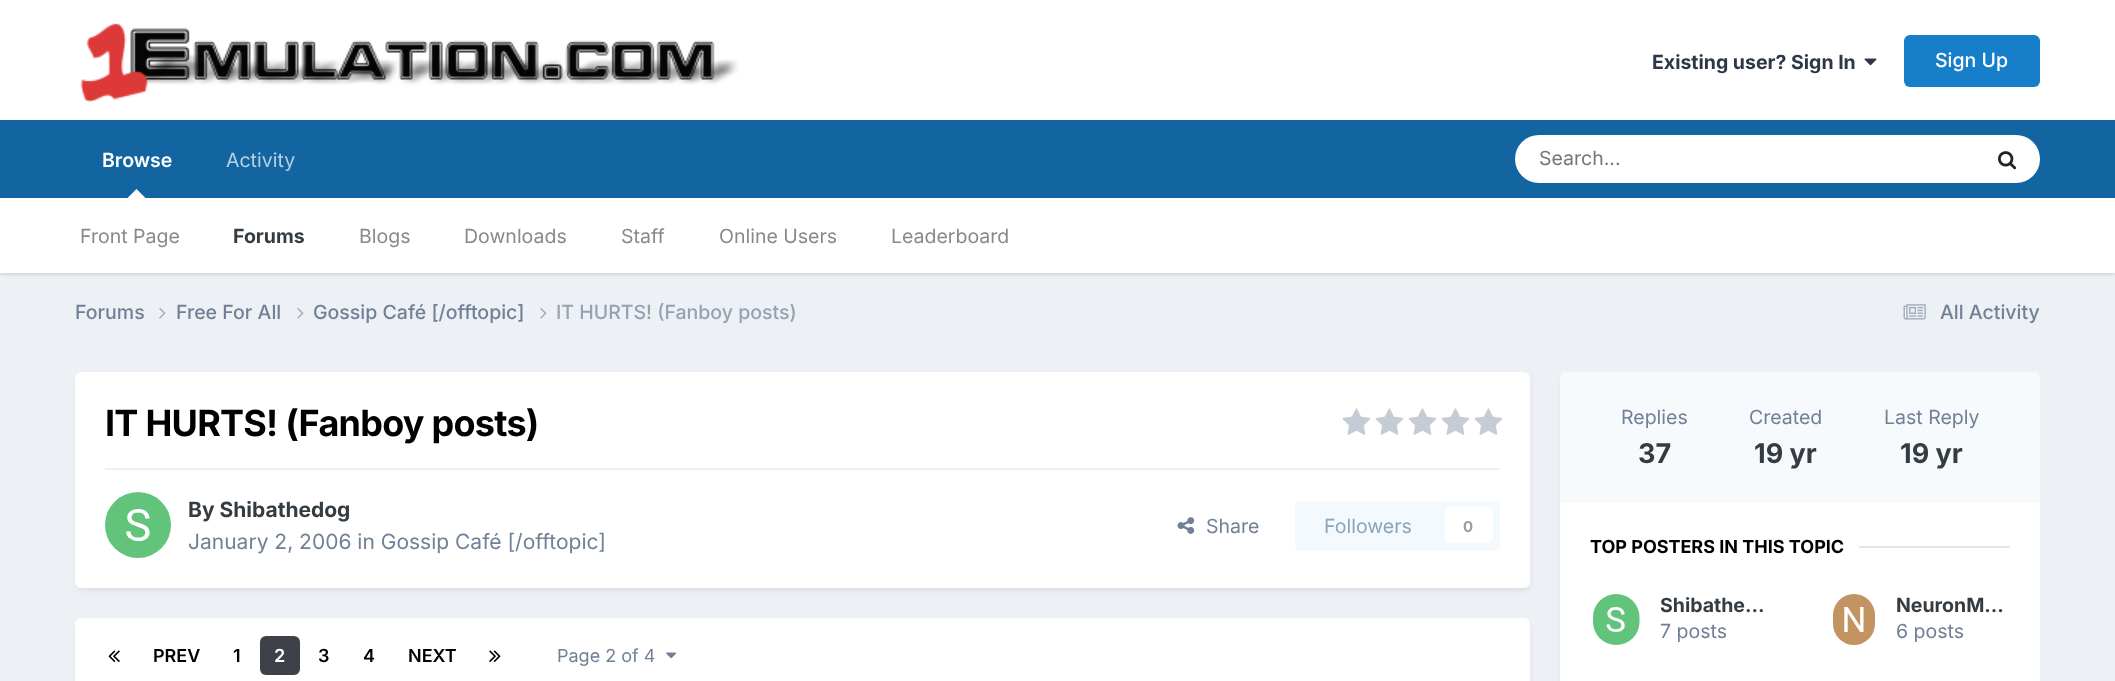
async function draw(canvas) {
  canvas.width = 2115
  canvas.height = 681
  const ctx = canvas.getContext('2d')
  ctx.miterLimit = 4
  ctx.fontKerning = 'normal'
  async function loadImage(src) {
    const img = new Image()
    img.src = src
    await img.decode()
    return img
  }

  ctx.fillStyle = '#edf0f4'
  ctx.fillRect(0, 0, 2115, 681)
  ctx.fillStyle = '#fff'
  ctx.fillRect(0, 0, 2115, 120)
  ctx.drawImage(await loadImage('image0.png'), 80, 23, 659, 80)
  ctx.font = 'bold 19.5px Inter'
  ctx.fillStyle = '#2d3748'
  ctx.fillText('Existing user? Sign In', 1652, 69)
  ctx.drawImage(await loadImage('image1.png'), 1864, 58, 13, 8)
  ctx.fillStyle = '#177ec9'
  ctx.beginPath()
  ctx.roundRect(1904, 35, 136, 52, 6)
  ctx.fill()
  ctx.font = '500 19.5px Inter'
  ctx.fillStyle = '#fff'
  ctx.fillText('Sign Up', 1935, 67)
  ctx.fillStyle = '#1265a1'
  ctx.fillRect(0, 120, 2115, 78)
  ctx.font = '600 19.5px Inter'
  ctx.fillStyle = '#fff'
  ctx.fillText('Browse', 102, 167)
  ctx.fillStyle = '#0000001a'
  ctx.filter = 'blur(1.5px)'
  ctx.beginPath()
  ctx.rect(0, 200, 2115, 75)
  ctx.fill()
  ctx.filter = 'none'
  ctx.fillStyle = '#fff'
  ctx.beginPath()
  ctx.moveTo(145.5, 198)
  ctx.lineTo(127.5, 198)
  ctx.lineTo(136.5, 189)
  ctx.closePath()
  ctx.fill()
  ctx.fillRect(0, 198, 2115, 75)
  ctx.font = '19.5px Inter'
  ctx.fillStyle = '#868a8d'
  ctx.fillText('Front Page', 80, 243)
  ctx.font = 'bold 19.5px Inter'
  ctx.fillStyle = '#353c41'
  ctx.fillText('Forums', 233, 243)
  ctx.font = '19.5px Inter'
  ctx.fillStyle = '#868a8d'
  ctx.fillText('Blogs', 359, 243)
  ctx.fillText('Downloads', 464, 243)
  ctx.fillText('Staff', 621, 243)
  ctx.fillText('Online Users', 719, 243)
  ctx.fillText('Leaderboard', 891, 243)
  ctx.fillStyle = '#b8d1e3'
  ctx.fillText('Activity', 226, 167)
  ctx.fillStyle = '#fff'
  ctx.beginPath()
  ctx.roundRect(1515, 135, 525, 48, 24)
  ctx.fill()
  ctx.fillStyle = '#757575'
  ctx.fillText('Search...', 1539, 165)
  ctx.drawImage(await loadImage('image2.png'), 1998, 151, 19, 19)
  ctx.font = '500 19.5px Inter'
  ctx.fillStyle = '#718096'
  ctx.fillText('Forums', 75, 319)
  ctx.drawImage(await loadImage('image3.png'), 159, 308, 7, 11)
  ctx.fillText('Free For All', 176, 319)
  ctx.drawImage(await loadImage('image3.png'), 297, 308, 7, 11)
  ctx.fillText('Gossip Café [/offtopic]', 313, 319)
  ctx.drawImage(await loadImage('image3.png'), 540, 308, 7, 11)
  ctx.fillStyle = '#96a2b2'
  ctx.fillText('IT HURTS! (Fanboy posts)', 556, 319)
  ctx.drawImage(await loadImage('image4.png'), 1903, 304, 23, 16)
  ctx.fillStyle = '#718096'
  ctx.fillText('All Activity', 1940, 319)
  ctx.fillStyle = '#2d37481a'
  ctx.filter = 'blur(3px)'
  ctx.beginPath()
  ctx.roundRect(77, 377, 1452, 213, 5)
  ctx.fill()
  ctx.filter = 'none'
  ctx.fillStyle = '#fff'
  ctx.beginPath()
  ctx.roundRect(75, 372, 1455, 216, 6)
  ctx.fill()
  ctx.letterSpacing = '-0.75px'
  ctx.font = 'bold 36px Inter'
  ctx.fillStyle = '#000'
  ctx.fillText('IT HURTS! (Fanboy posts)', 105, 436)
  ctx.drawImage(await loadImage('image5.png'), 1342, 408, 29, 27)
  ctx.drawImage(await loadImage('image5.png'), 1375, 408, 29, 27)
  ctx.drawImage(await loadImage('image5.png'), 1408, 408, 29, 27)
  ctx.drawImage(await loadImage('image5.png'), 1441, 408, 29, 27)
  ctx.drawImage(await loadImage('image5.png'), 1474, 408, 29, 27)
  ctx.fillStyle = '#efeff0'
  ctx.fillRect(105, 468, 1395, 2)
  ctx.drawImage(await loadImage('image6.png'), 105, 492, 66, 66)
  ctx.letterSpacing = '0px'
  ctx.font = 'bold 21px Inter'
  ctx.fillStyle = '#353c41'
  ctx.fillText('By Shibathedog', 188, 517)
  ctx.font = '21px Inter'
  ctx.fillStyle = '#718096'
  ctx.fillText('January 2, 2006 in Gossip Café [/offtopic]', 188, 549)
  ctx.drawImage(await loadImage('image7.png'), 1177, 517, 18, 17)
  ctx.font = '19.5px Inter'
  ctx.fillText('Share', 1206, 533)
  ctx.fillStyle = '#f4f9fd'
  ctx.beginPath()
  ctx.roundRect(1295, 501, 205, 50, 6)
  ctx.fill()
  ctx.fillStyle = '#87a6bc'
  ctx.fillText('Followers', 1324, 533)
  ctx.fillStyle = '#fff'
  ctx.beginPath()
  ctx.roundRect(1445, 507, 48, 36, 6)
  ctx.fill()
  ctx.font = 'bold 15px Inter'
  ctx.fillStyle = '#9a9ea0'
  ctx.fillText('0', 1463, 532)
  ctx.fillStyle = '#2d37481a'
  ctx.filter = 'blur(3px)'
  ctx.beginPath()
  ctx.roundRect(77, 623, 1452, 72, 5)
  ctx.fill()
  ctx.filter = 'none'
  ctx.fillStyle = '#fff'
  ctx.beginPath()
  ctx.roundRect(75, 618, 1455, 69, 6)
  ctx.fill()
  ctx.drawImage(await loadImage('image8.png'), 108, 650, 12, 12)
  ctx.font = '600 18px Inter'
  ctx.fillStyle = '#000'
  ctx.fillText('PREV', 153, 662)
  ctx.fillText('1', 233, 662)
  ctx.fillStyle = '#3e4148'
  ctx.beginPath()
  ctx.roundRect(260, 636, 40, 39, 6)
  ctx.fill()
  ctx.fillStyle = '#fff'
  ctx.fillText('2', 274, 662)
  ctx.fillStyle = '#000'
  ctx.fillText('3', 318, 662)
  ctx.fillText('4', 363, 662)
  ctx.fillText('NEXT', 408, 662)
  ctx.drawImage(await loadImage('image9.png'), 489, 650, 12, 12)
  ctx.font = '18px Inter'
  ctx.fillStyle = '#718096'
  ctx.fillText('Page 2 of 4', 557, 662)
  ctx.drawImage(await loadImage('image10.png'), 666, 652, 11, 7)
  ctx.save()
  ctx.beginPath()
  ctx.rect(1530, 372, 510, 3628)
  ctx.clip()
  ctx.fillStyle = '#2d37481a'
  ctx.filter = 'blur(3px)'
  ctx.beginPath()
  ctx.roundRect(1562, 377, 477, 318, 5)
  ctx.fill()
  ctx.filter = 'none'
  ctx.restore()
  ctx.fillStyle = '#fff'
  ctx.beginPath()
  ctx.roundRect(1560, 372, 480, 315, 6)
  ctx.fill()
  ctx.fillStyle = '#f7fafc'
  ctx.beginPath()
  ctx.roundRect(1560, 372, 480, 131, [6, 6, 0, 0])
  ctx.fill()
  ctx.font = '19.5px Inter'
  ctx.fillStyle = '#718096'
  ctx.fillText('Replies', 1621, 424)
  ctx.font = 'bold 27px Inter'
  ctx.fillStyle = '#353c41'
  ctx.fillText('37', 1638, 463)
  ctx.font = '19.5px Inter'
  ctx.fillStyle = '#718096'
  ctx.fillText('Created', 1749, 424)
  ctx.font = 'bold 27px Inter'
  ctx.fillStyle = '#353c41'
  ctx.fillText('19 yr', 1754, 463)
  ctx.font = '19.5px Inter'
  ctx.fillStyle = '#718096'
  ctx.fillText('Last Reply', 1884, 424)
  ctx.font = 'bold 27px Inter'
  ctx.fillStyle = '#353c41'
  ctx.fillText('19 yr', 1900, 463)
  ctx.font = 'bold 18px Inter'
  ctx.fillStyle = '#000'
  ctx.fillText('TOP POSTERS IN THIS TOPIC', 1590, 553)
  ctx.fillStyle = '#e6e6e6'
  ctx.fillRect(1859, 546, 151, 2)
  ctx.drawImage(await loadImage('image11.png'), 1593, 594, 47, 51)
  ctx.font = 'bold 19.5px Inter'
  ctx.fillStyle = '#353c41'
  ctx.fillText('Shibathe…', 1660, 612)
  ctx.font = '19.5px Inter'
  ctx.fillStyle = '#718096'
  ctx.fillText('7 posts', 1660, 638)
  ctx.drawImage(await loadImage('image12.png'), 1833, 594, 42, 51)
  ctx.font = 'bold 19.5px Inter'
  ctx.fillStyle = '#353c41'
  ctx.fillText('NeuronM…', 1896, 612)
  ctx.font = '19.5px Inter'
  ctx.fillStyle = '#718096'
  ctx.fillText('6 posts', 1896, 638)
}

draw(document.querySelector('canvas'))
